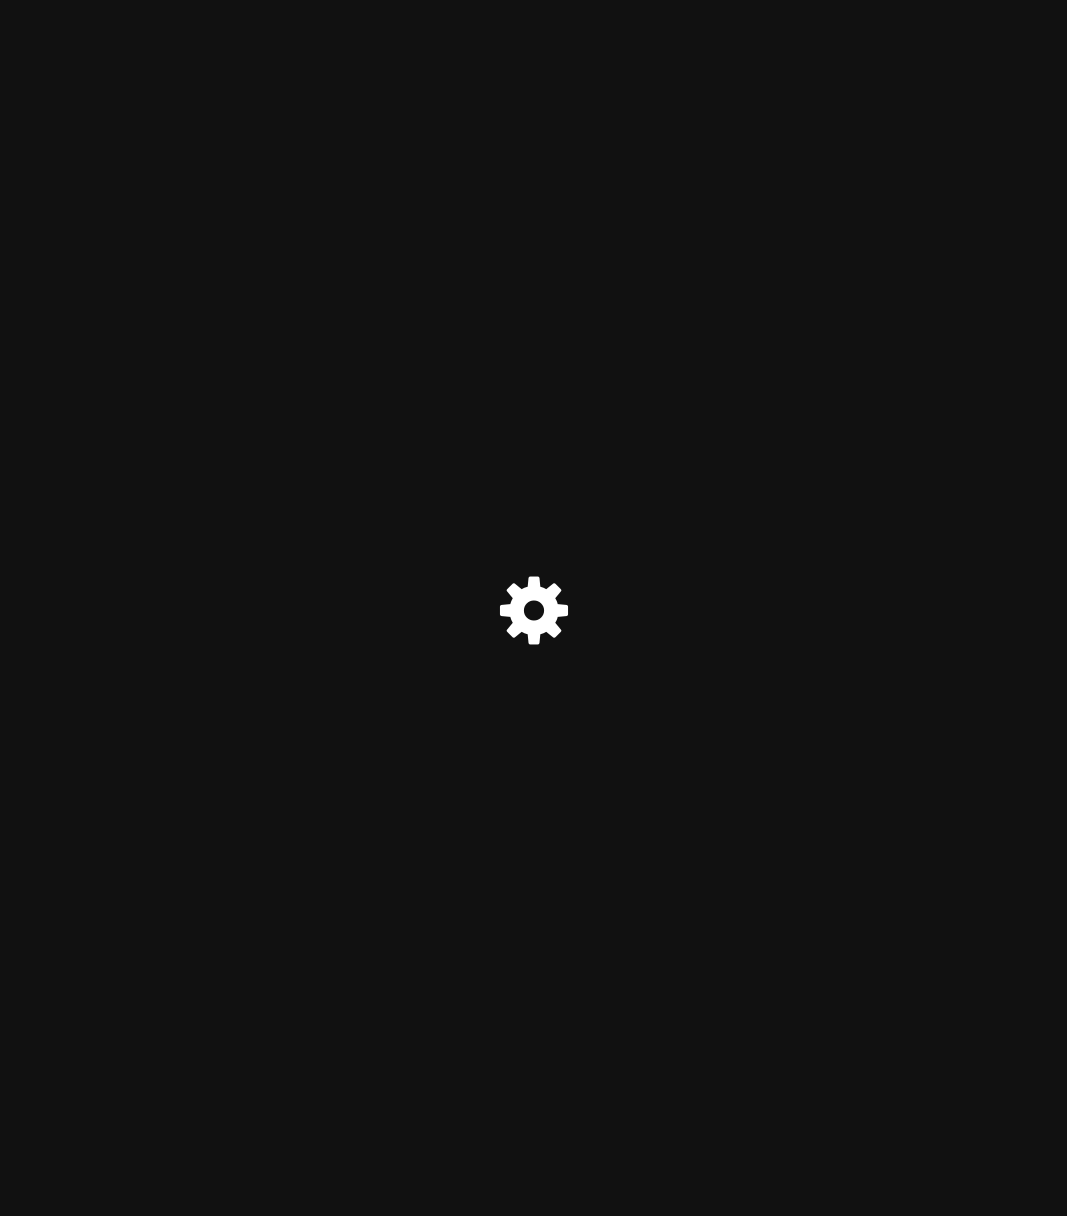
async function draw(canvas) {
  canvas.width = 1067
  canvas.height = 1216
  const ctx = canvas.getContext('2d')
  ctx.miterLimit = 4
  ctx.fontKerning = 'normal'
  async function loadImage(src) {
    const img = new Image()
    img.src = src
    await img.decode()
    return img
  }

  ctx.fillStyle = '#111'
  ctx.fillRect(0, 0, 1067, 1216)
  ctx.drawImage(await loadImage('image0.png'), 499, 576, 70, 69)
}

draw(document.querySelector('canvas'))
